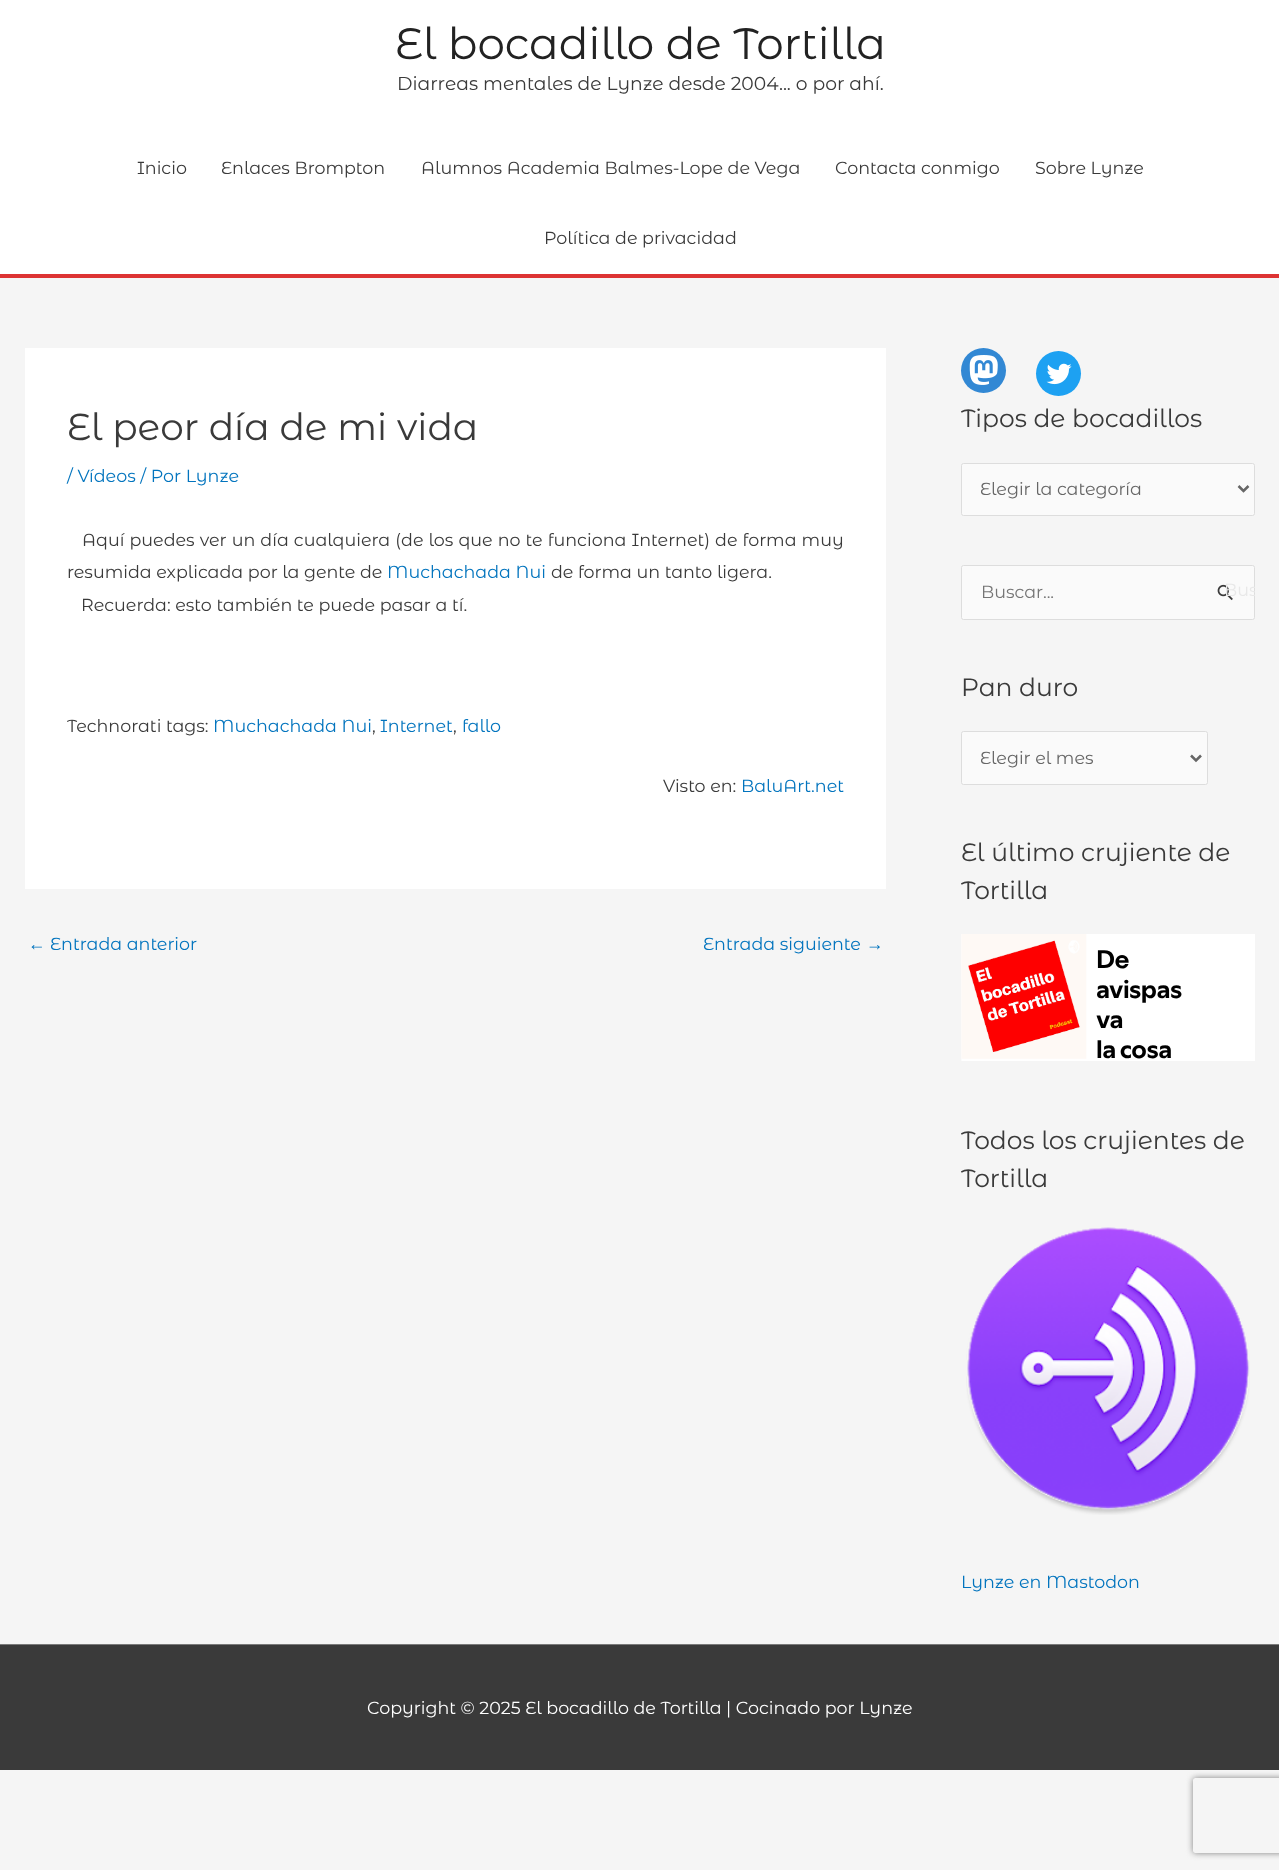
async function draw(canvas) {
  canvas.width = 1279
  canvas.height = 1870
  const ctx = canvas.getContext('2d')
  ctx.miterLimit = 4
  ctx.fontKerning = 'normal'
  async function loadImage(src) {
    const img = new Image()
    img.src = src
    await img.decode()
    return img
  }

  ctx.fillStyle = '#f5f5f5'
  ctx.fillRect(0, 0, 1279, 1870)
  ctx.fillStyle = '#fff'
  ctx.fillRect(0, 0, 1279, 274)
  ctx.fillStyle = '#d33'
  ctx.fillRect(0, 274, 1279, 4)
  ctx.font = '43.75px Montserrat Alternates'
  ctx.fillStyle = '#222'
  ctx.fillText('El bocadillo de Tortilla', 395, 59)
  ctx.font = '18.75px Montserrat Alternates'
  ctx.fillStyle = '#3a3a3a'
  ctx.fillText('Diarreas mentales de Lynze desde 2004... o por ahí.', 397, 90)
  ctx.font = '17.5px Montserrat Alternates'
  ctx.fillText('Inicio', 137, 174)
  ctx.fillText('Enlaces Brompton', 221, 174)
  ctx.fillText('Alumnos Academia Balmes-Lope de Vega', 421, 174)
  ctx.fillText('Contacta conmigo', 835, 174)
  ctx.fillText('Sobre Lynze', 1035, 174)
  ctx.fillText('Política de privacidad', 544, 244)
  ctx.fillStyle = '#fff'
  ctx.fillRect(25, 348, 861, 541)
  ctx.font = '37.5px Montserrat Alternates'
  ctx.fillStyle = '#3a3a3a'
  ctx.fillText('El peor día de mi vida', 67, 440)
  ctx.font = '17.5px Montserrat Alternates'
  ctx.fillStyle = '#0274be'
  ctx.fillText('/ Vídeos / Por Lynze', 67, 482)
  ctx.wordSpacing = '0.5px'
  ctx.fillStyle = '#3a3a3a'
  ctx.fillText('Aquí puedes ver un día cualquiera (de los que no te funciona Internet) de forma muy', 82, 546)
  ctx.wordSpacing = '0px'
  ctx.fillText('resumida explicada por la gente de', 67, 578)
  ctx.fillStyle = '#0274be'
  ctx.fillText('Muchachada Nui', 387, 578)
  ctx.fillStyle = '#3a3a3a'
  ctx.fillText('de forma un tanto ligera.', 551, 578)
  ctx.fillText('Recuerda: esto también te puede pasar a tí.', 81, 611)
  ctx.fillText('Technorati tags:', 67, 732)
  ctx.fillStyle = '#0274be'
  ctx.fillText('Muchachada Nui', 213, 732)
  ctx.fillStyle = '#3a3a3a'
  ctx.fillText(',', 372, 732)
  ctx.fillStyle = '#0274be'
  ctx.fillText('Internet', 380, 732)
  ctx.fillStyle = '#3a3a3a'
  ctx.fillText(',', 453, 732)
  ctx.fillStyle = '#0274be'
  ctx.fillText('fallo', 462, 732)
  ctx.fillStyle = '#3a3a3a'
  ctx.fillText('Visto en:', 663, 792)
  ctx.fillStyle = '#0274be'
  ctx.fillText('BaluArt.net', 741, 792)
  ctx.font = '17.5px Liberation Sans'
  ctx.fillText('←', 28, 950)
  ctx.font = '17.5px Montserrat Alternates'
  ctx.fillText('Entrada anterior', 50, 950)
  ctx.fillText('Entrada siguiente', 703, 950)
  ctx.font = '17.5px Liberation Sans'
  ctx.fillText('→', 866, 950)
  ctx.fillStyle = '#3288d4'
  ctx.beginPath()
  ctx.arc(983.5, 370.5, 22.5, 0, 2 * Math.PI)
  ctx.fill()
  ctx.drawImage(await loadImage('image0.png'), 969, 355, 29, 30)
  ctx.fillStyle = '#1da1f2'
  ctx.beginPath()
  ctx.arc(1058.5, 373.5, 22.5, 0, 2 * Math.PI)
  ctx.fill()
  ctx.drawImage(await loadImage('image1.png'), 1046, 363, 26, 22)
  ctx.font = '25px Montserrat Alternates'
  ctx.fillStyle = '#3a3a3a'
  ctx.fillText('Tipos de bocadillos', 961, 427)
  ctx.fillStyle = '#fafafa'
  ctx.beginPath()
  ctx.roundRect(961.5, 463.5, 293, 52, 2)
  ctx.fill()
  ctx.strokeStyle = '#ddd'
  ctx.stroke()
  ctx.beginPath()
  ctx.moveTo(1238.5, 486)
  ctx.lineTo(1243.5, 491)
  ctx.lineTo(1248.5, 486)
  ctx.strokeStyle = '#666'
  ctx.lineWidth = 2.5
  ctx.stroke()
  ctx.font = '17.5px Montserrat Alternates'
  ctx.fillStyle = '#666'
  ctx.fillText('Elegir la categoría', 980, 495)
  ctx.fillStyle = '#fafafa'
  ctx.beginPath()
  ctx.roundRect(961.5, 565.5, 293, 54, 2)
  ctx.fill()
  ctx.strokeStyle = '#ddd'
  ctx.lineWidth = 1
  ctx.stroke()
  ctx.drawImage(await loadImage('image2.png'), 1217, 584, 16, 17)
  ctx.save()
  ctx.beginPath()
  ctx.roundRect(1199, 565, 56, 50, 2.5)
  ctx.clip()
  ctx.fillStyle = '#e8e8e8'
  ctx.fillText('Bus', 1224, 596)
  ctx.restore()
  ctx.fillStyle = '#757575'
  ctx.fillText('Buscar...', 981, 598)
  ctx.font = '25px Montserrat Alternates'
  ctx.fillStyle = '#3a3a3a'
  ctx.fillText('Pan duro', 961, 696)
  ctx.fillStyle = '#fafafa'
  ctx.beginPath()
  ctx.roundRect(961.5, 731.5, 246, 53, 2)
  ctx.fill()
  ctx.stroke()
  ctx.beginPath()
  ctx.moveTo(1191, 755.5)
  ctx.lineTo(1196, 760.5)
  ctx.lineTo(1201, 755.5)
  ctx.strokeStyle = '#666'
  ctx.lineWidth = 2.5
  ctx.stroke()
  ctx.font = '17.5px Montserrat Alternates'
  ctx.fillStyle = '#666'
  ctx.fillText('Elegir el mes', 980, 764)
  ctx.font = '25px Montserrat Alternates'
  ctx.fillStyle = '#3a3a3a'
  ctx.fillText('El último crujiente de', 961, 861)
  ctx.fillText('Tortilla', 961, 899)
  ctx.drawImage(await loadImage('image3.png'), 961, 934, 294, 127)
  ctx.fillText('Todos los crujientes de', 961, 1149)
  ctx.fillText('Tortilla', 961, 1187)
  ctx.drawImage(await loadImage('image4.png'), 966, 1227, 284, 288)
  ctx.font = '17.5px Montserrat Alternates'
  ctx.fillStyle = '#0274be'
  ctx.fillText('Lynze en Mastodon', 961, 1588)
  ctx.fillStyle = '#7a7a7a'
  ctx.fillRect(0, 1644, 1279, 1)
  ctx.fillStyle = '#3a3a3a'
  ctx.fillRect(0, 1645, 1279, 125)
  ctx.fillStyle = '#fff'
  ctx.fillText('Copyright © 2025 El bocadillo de Tortilla | Cocinado por Lynze', 367, 1714)
  ctx.save()
  ctx.beginPath()
  ctx.moveTo(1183, 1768)
  ctx.lineTo(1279, 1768)
  ctx.lineTo(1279, 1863)
  ctx.lineTo(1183, 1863)
  ctx.closePath()
  ctx.moveTo(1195.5, 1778)
  ctx.lineTo(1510.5, 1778)
  ctx.bezierCurveTo(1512, 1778, 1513, 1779, 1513, 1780.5)
  ctx.lineTo(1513, 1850.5)
  ctx.bezierCurveTo(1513, 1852, 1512, 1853, 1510.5, 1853)
  ctx.lineTo(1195.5, 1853)
  ctx.bezierCurveTo(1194, 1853, 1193, 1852, 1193, 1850.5)
  ctx.lineTo(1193, 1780.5)
  ctx.bezierCurveTo(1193, 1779, 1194, 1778, 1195.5, 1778)
  ctx.closePath()
  ctx.clip('evenodd')
  ctx.fillStyle = '#808080'
  ctx.filter = 'blur(3px)'
  ctx.beginPath()
  ctx.roundRect(1193, 1778, 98, 75, 2.5)
  ctx.fill()
  ctx.filter = 'none'
  ctx.restore()
}

draw(document.querySelector('canvas'))
